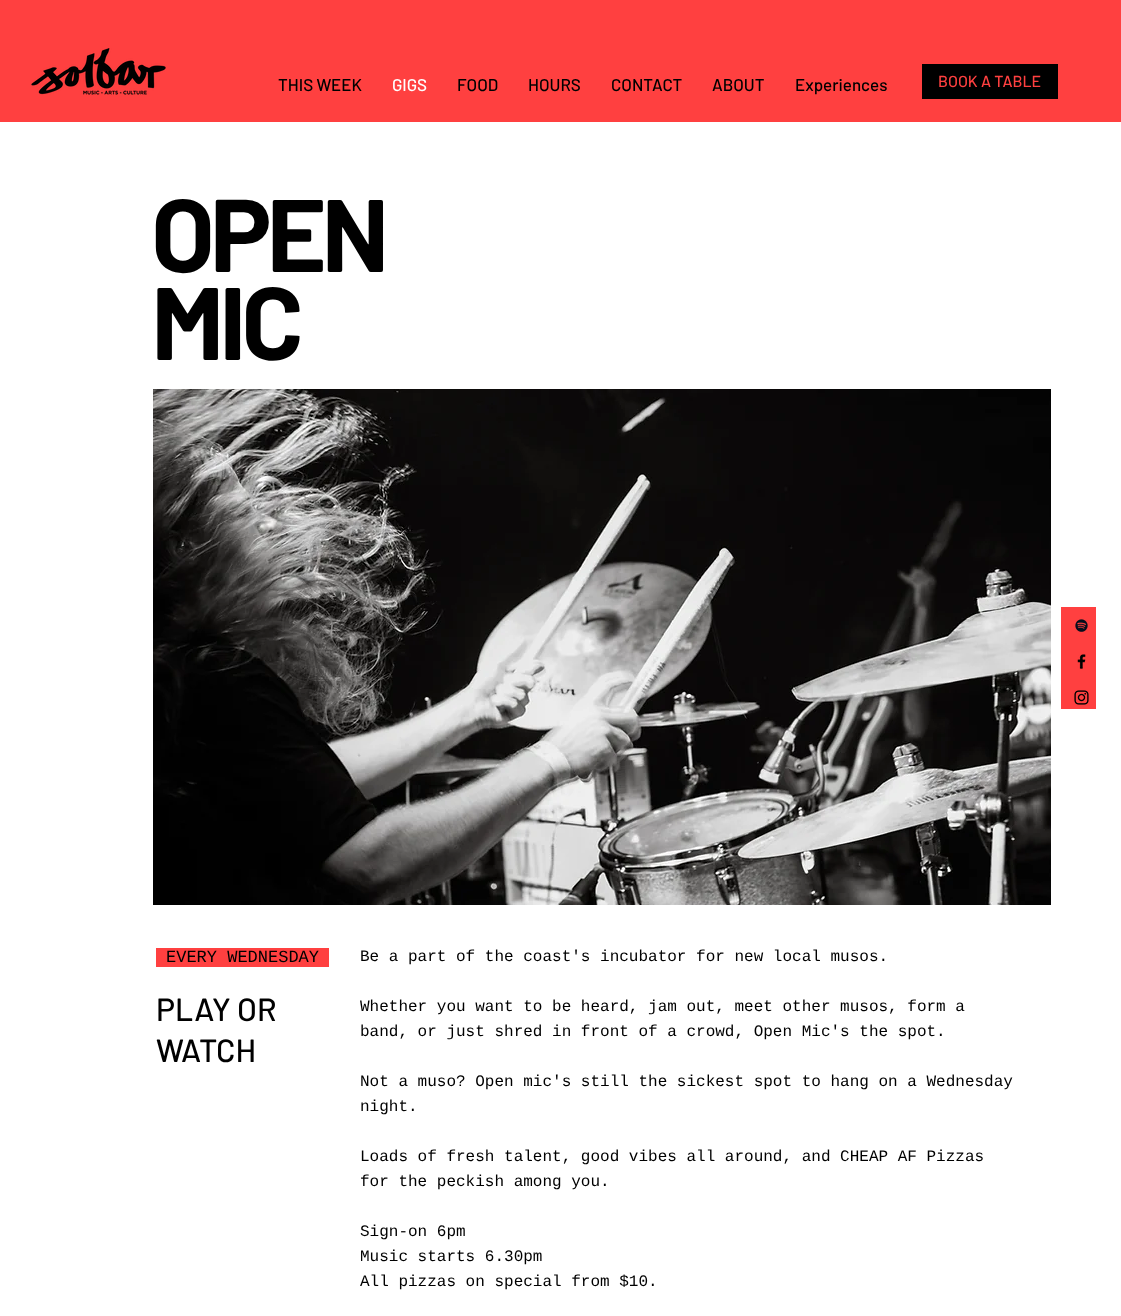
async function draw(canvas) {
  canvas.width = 1121
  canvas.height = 1316
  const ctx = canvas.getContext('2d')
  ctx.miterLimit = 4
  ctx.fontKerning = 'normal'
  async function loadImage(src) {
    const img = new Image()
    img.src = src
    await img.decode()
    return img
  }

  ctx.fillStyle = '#fff'
  ctx.fillRect(0, 0, 1121, 1316)
  ctx.fillStyle = '#ff4040'
  ctx.fillRect(0, 0, 1121, 122)
  ctx.drawImage(await loadImage('image0.png'), 31, 48, 135, 47)
  ctx.font = '500 17px Barlow'
  ctx.fillStyle = '#000'
  ctx.fillText('THIS WEEK', 278, 91)
  ctx.fillStyle = '#fff'
  ctx.fillText('GIGS', 392, 91)
  ctx.fillStyle = '#000'
  ctx.fillText('FOOD', 457, 91)
  ctx.fillText('HOURS', 528, 91)
  ctx.fillText('CONTACT', 611, 91)
  ctx.fillText('ABOUT', 712, 91)
  ctx.fillText('Experiences', 795, 91)
  ctx.fillRect(922, 64, 136, 35)
  ctx.font = '500 16px Barlow'
  ctx.fillStyle = '#ff4040'
  ctx.fillText('BOOK A TABLE', 938, 87)
  ctx.letterSpacing = '-5px'
  ctx.font = 'bold 103px Barlow'
  ctx.fillStyle = '#000'
  ctx.fillText('OPEN', 151, 272)
  ctx.fillText('MIC', 151, 360)
  ctx.drawImage(await loadImage('image1.png'), 153, 389, 898, 516)
  ctx.fillStyle = '#ff4040'
  ctx.fillRect(156, 948, 173, 19)
  ctx.letterSpacing = '0px'
  ctx.font = '17px Liberation Mono'
  ctx.fillStyle = '#000'
  ctx.fillText('EVERY WEDNESDAY', 166, 962)
  ctx.font = '16px Liberation Mono'
  ctx.fillText('Be a part of the coast\'s incubator for new local musos.', 360, 961)
  ctx.fillText('Whether you want to be heard, jam out, meet other musos, form a', 360, 1011)
  ctx.fillText('band, or just shred in front of a crowd, Open Mic\'s the spot.', 360, 1036)
  ctx.fillText('Not a muso? Open mic\'s still the sickest spot to hang on a Wednesday', 360, 1086)
  ctx.fillText('night.', 360, 1111)
  ctx.fillText('Loads of fresh talent, good vibes all around, and CHEAP AF Pizzas', 360, 1161)
  ctx.fillText('for the peckish among you.', 360, 1186)
  ctx.fillText('Sign-on 6pm', 360, 1236)
  ctx.fillText('Music starts 6.30pm', 360, 1261)
  ctx.fillText('All pizzas on special from $10.', 360, 1286)
  ctx.font = '500 32px Barlow'
  ctx.fillText('PLAY OR', 156, 1021)
  ctx.fillText('WATCH', 156, 1062)
  ctx.fillStyle = '#ff4040'
  ctx.fillRect(1061, 607, 35, 102)
  ctx.drawImage(await loadImage('image2.png'), 1075, 619, 13, 13)
  ctx.drawImage(await loadImage('image3.png'), 1077, 654, 9, 15)
  ctx.drawImage(await loadImage('image4.png'), 1074, 690, 15, 15)
}

draw(document.querySelector('canvas'))
